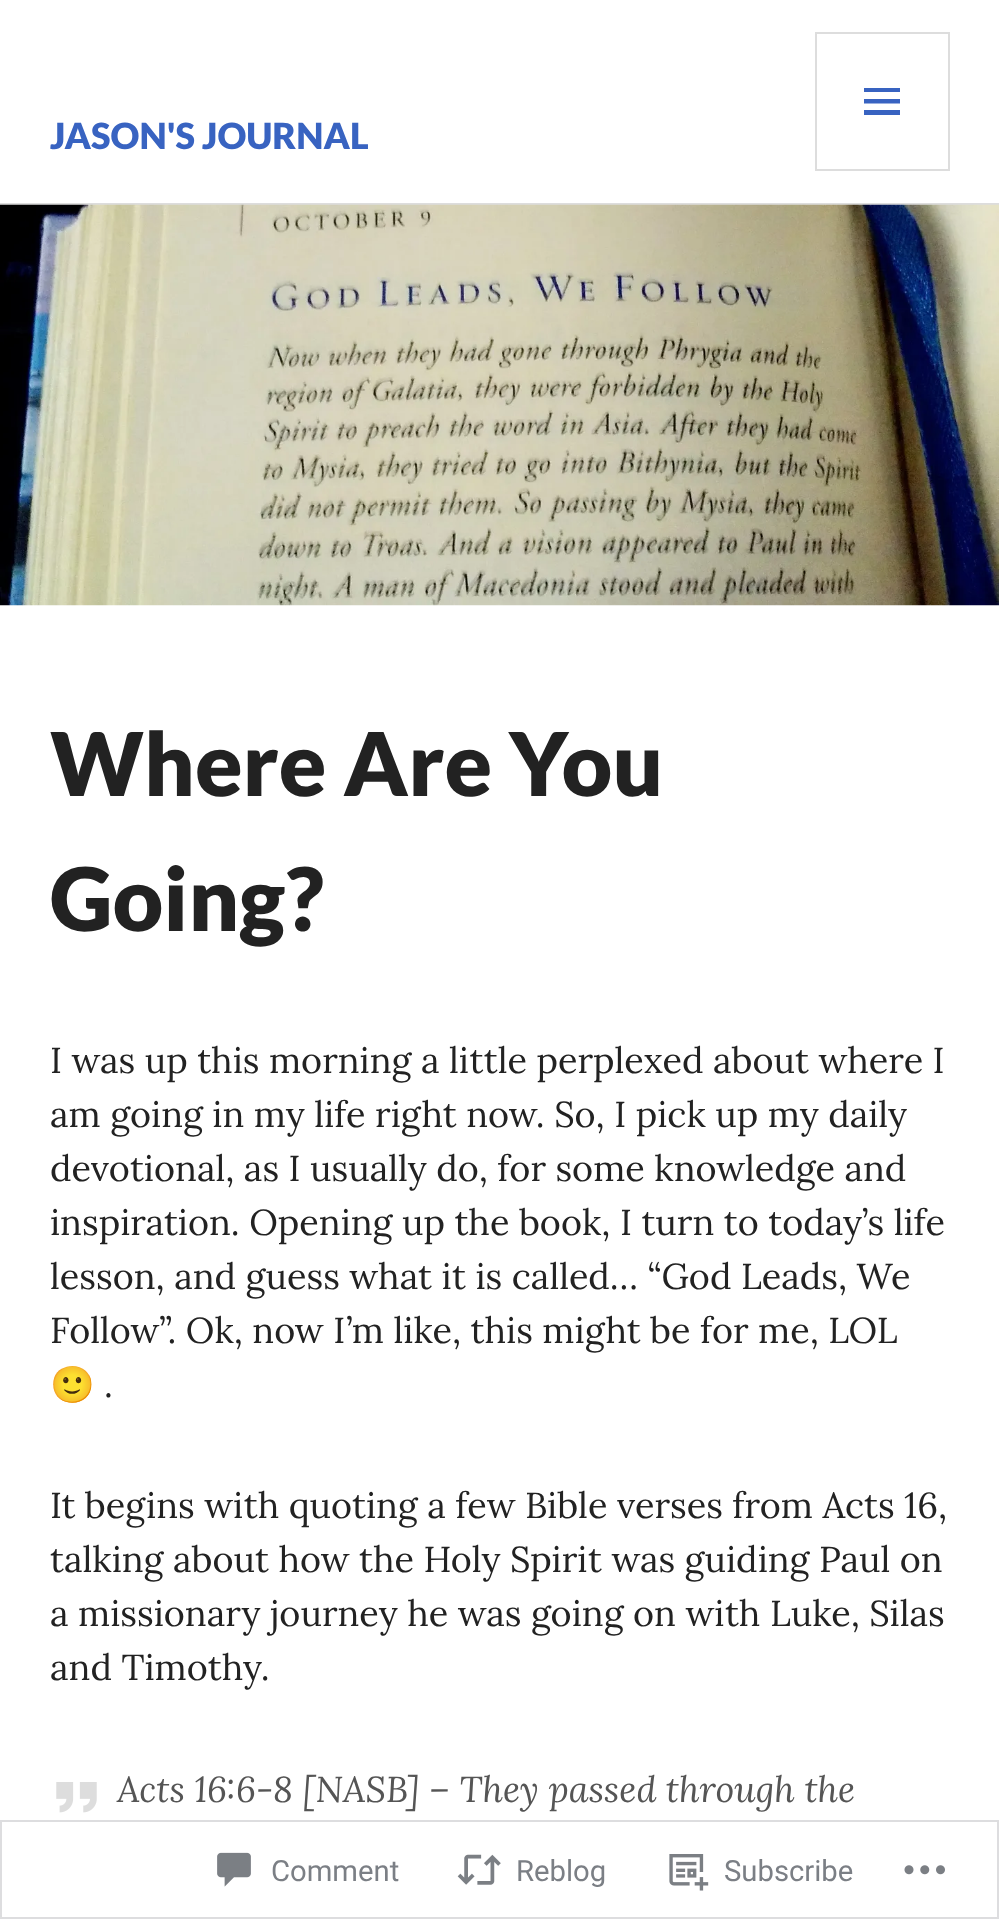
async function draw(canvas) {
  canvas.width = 999
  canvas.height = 1919
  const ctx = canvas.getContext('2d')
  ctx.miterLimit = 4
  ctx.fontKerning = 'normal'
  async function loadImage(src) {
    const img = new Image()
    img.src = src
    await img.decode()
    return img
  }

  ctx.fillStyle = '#fff'
  ctx.fillRect(0, 0, 999, 1919)
  ctx.fillStyle = '#ddd'
  ctx.fillRect(0, 203, 999, 2)
  ctx.font = '900 36px Lato'
  ctx.fillStyle = '#3863c1'
  ctx.fillText('JASON\'S JOURNAL', 50, 149)
  ctx.strokeStyle = '#ddd'
  ctx.lineWidth = 2
  ctx.strokeRect(816, 33, 133, 137)
  ctx.beginPath()
  ctx.moveTo(864, 115)
  ctx.lineTo(864, 110)
  ctx.lineTo(900, 110)
  ctx.lineTo(900, 115)
  ctx.closePath()
  ctx.moveTo(864, 88)
  ctx.lineTo(900, 88)
  ctx.lineTo(900, 92)
  ctx.lineTo(864, 92)
  ctx.closePath()
  ctx.moveTo(864, 103.5)
  ctx.lineTo(864, 99)
  ctx.lineTo(900, 99)
  ctx.lineTo(900, 103.5)
  ctx.closePath()
  ctx.fill()
  ctx.drawImage(await loadImage('image0.png'), 0, 204, 999, 402)
  ctx.font = '900 87.75px Lato'
  ctx.fillStyle = '#222'
  ctx.fillText('Where Are You', 50, 796)
  ctx.fillText('Going?', 50, 931)
  ctx.font = '36px Lora'
  ctx.fillText('I was up this morning a little perplexed about where I', 50, 1073)
  ctx.fillText('am going in my life right now. So, I pick up my daily', 50, 1127)
  ctx.fillText('devotional, as I usually do, for some knowledge and', 50, 1181)
  ctx.fillText('inspiration. Opening up the book, I turn to today’s life', 50, 1235)
  ctx.fillText('lesson, and guess what it is called… “God Leads, We', 50, 1289)
  ctx.fillText('Follow”. Ok, now I’m like, this might be for me, LOL', 50, 1343)
  ctx.font = '36px Noto Color Emoji'
  ctx.fillText('🙂', 50, 1397)
  ctx.font = '36px Lora'
  ctx.fillText('.', 104, 1397)
  ctx.fillText('It begins with quoting a few Bible verses from Acts 16,', 50, 1518)
  ctx.fillText('talking about how the Holy Spirit was guiding Paul on', 50, 1572)
  ctx.fillText('a missionary journey he was going on with Luke, Silas', 50, 1626)
  ctx.fillText('and Timothy.', 50, 1680)
  ctx.drawImage(await loadImage('image1.png'), 56, 1782, 41, 31)
  ctx.font = 'italic 36px Lora'
  ctx.fillStyle = '#555'
  ctx.fillText('Acts 16:6-8 [NASB] – They passed through the', 117, 1802)
  ctx.strokeStyle = '#dcdcdefa'
  ctx.strokeRect(1, 1821, 997, 97)
  ctx.drawImage(await loadImage('image2.png'), 217, 1852, 34, 35)
  ctx.font = '29.25px Roboto'
  ctx.fillStyle = '#7b7f85'
  ctx.fillText('Comment', 271, 1881)
  ctx.drawImage(await loadImage('image3.png'), 457, 1854, 44, 31)
  ctx.fillText('Reblog', 516, 1881)
  ctx.drawImage(await loadImage('image4.png'), 669, 1854, 40, 37)
  ctx.fillText('Subscribe', 724, 1881)
  ctx.drawImage(await loadImage('image5.png'), 904, 1865, 41, 10)
}

draw(document.querySelector('canvas'))
